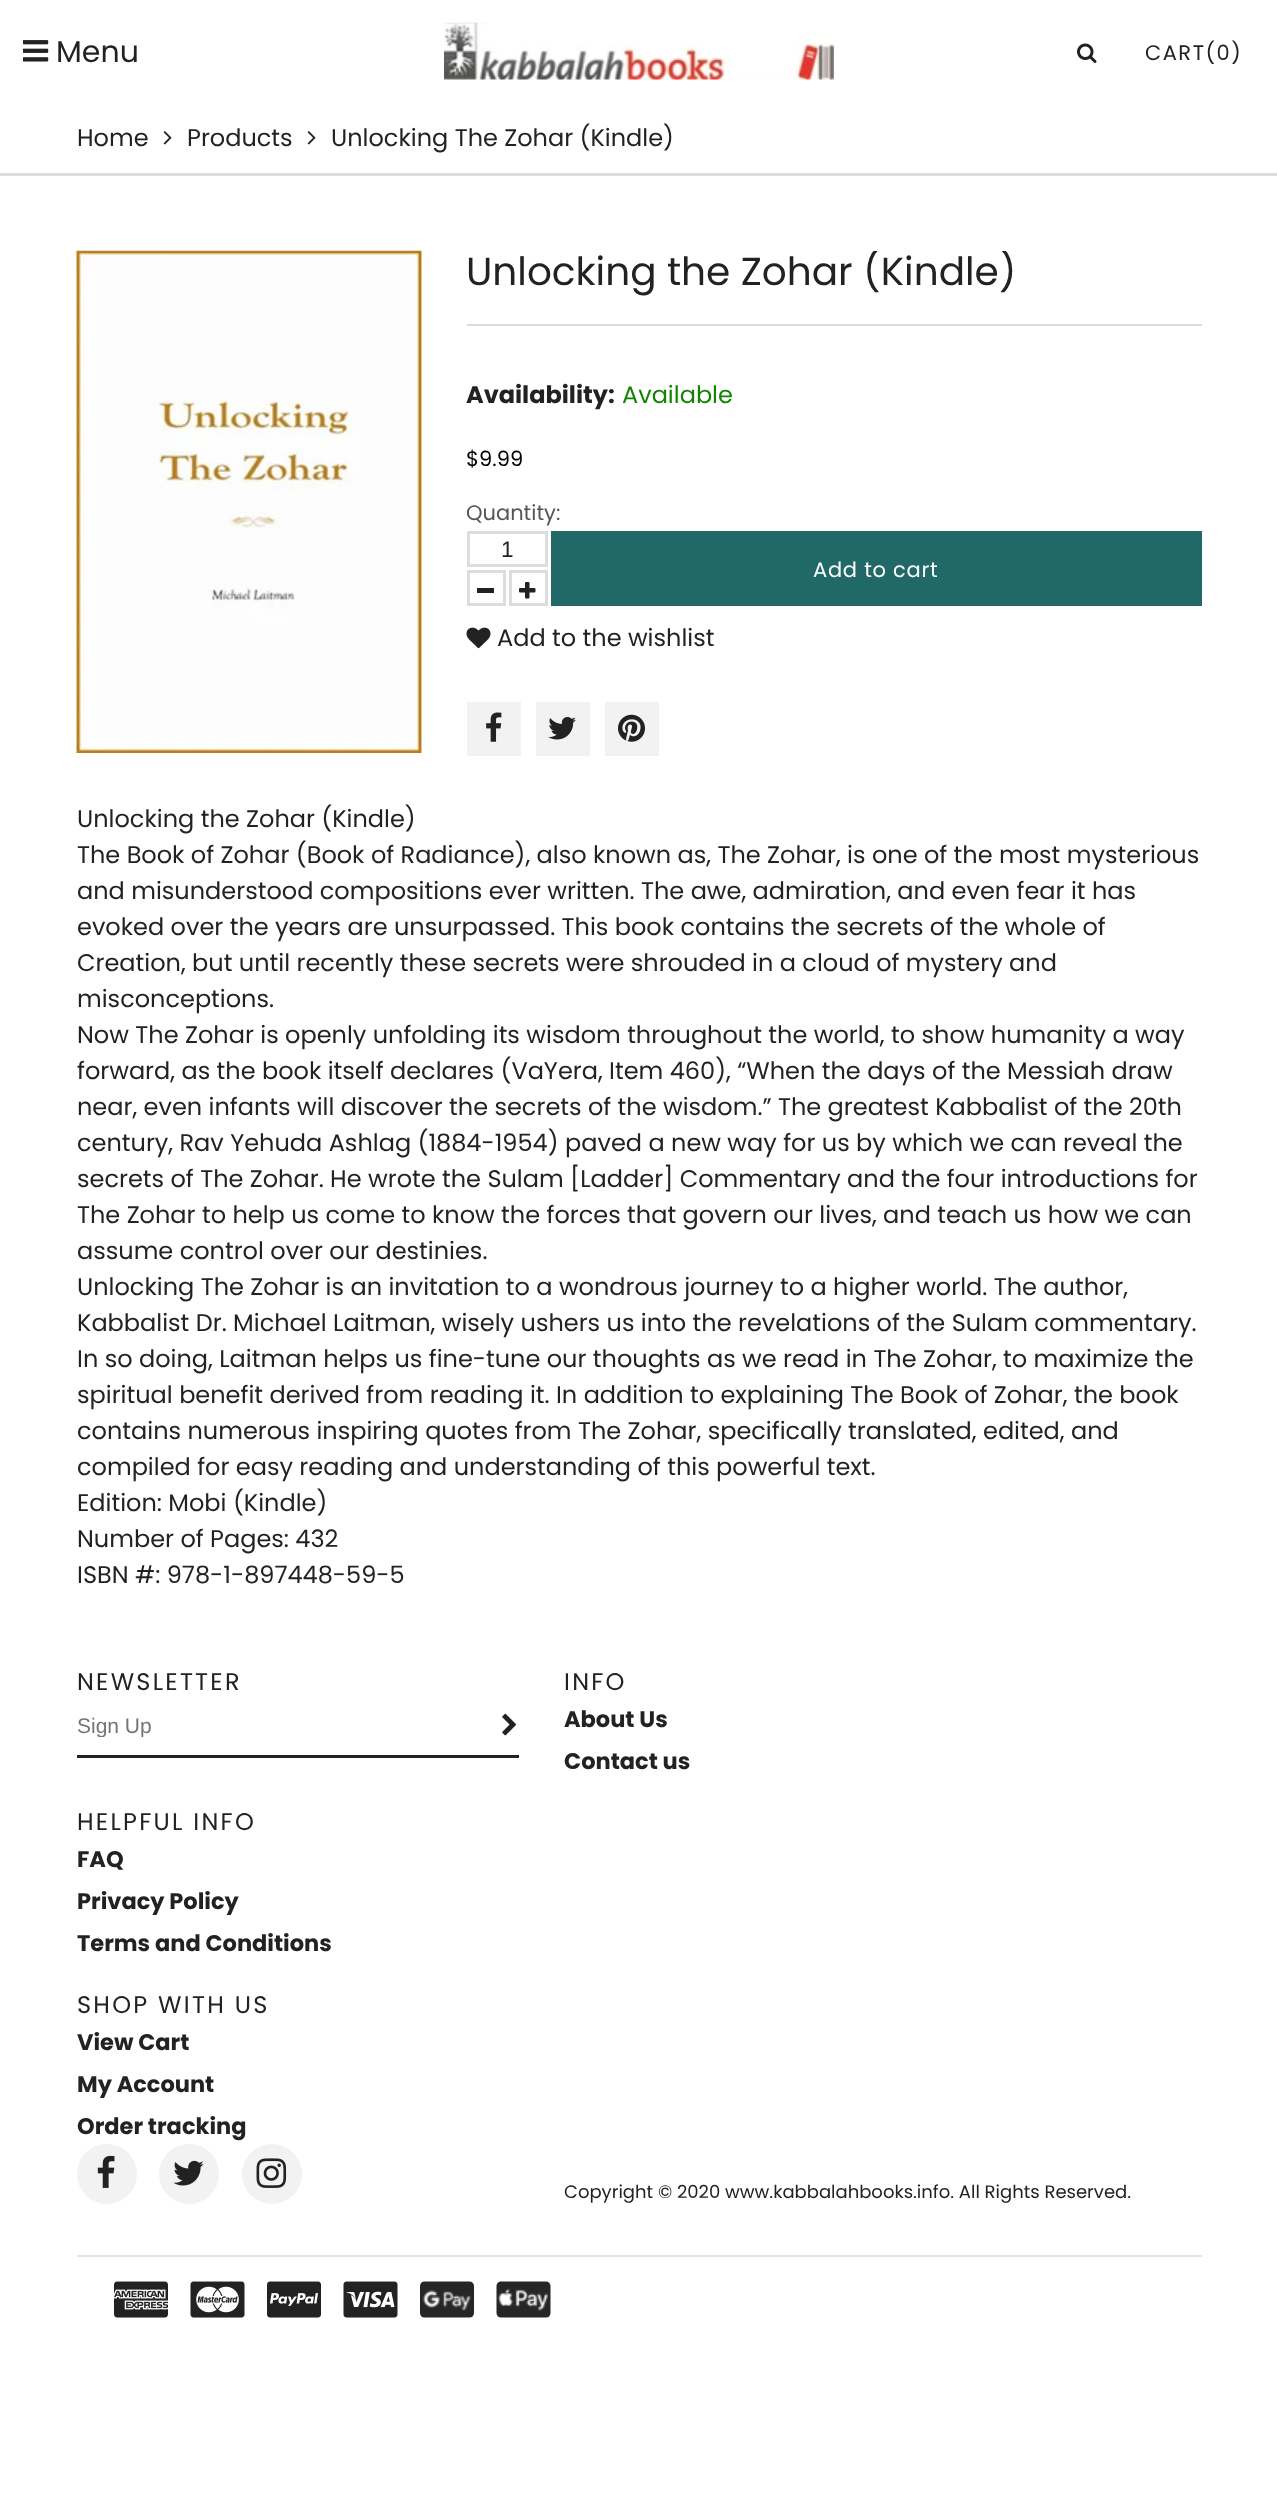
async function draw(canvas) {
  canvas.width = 1277
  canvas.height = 2520
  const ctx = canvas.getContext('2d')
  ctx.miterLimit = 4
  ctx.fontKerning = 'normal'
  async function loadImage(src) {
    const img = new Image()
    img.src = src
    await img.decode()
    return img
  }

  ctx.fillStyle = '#fff'
  ctx.fillRect(0, 0, 1277, 2520)
  ctx.drawImage(await loadImage('image0.png'), 23, 40, 26, 22)
  ctx.font = '30px Poppins'
  ctx.fillStyle = '#222'
  ctx.fillText('Menu', 56, 62)
  ctx.drawImage(await loadImage('image1.png'), 444, 22, 390, 58)
  ctx.drawImage(await loadImage('image2.png'), 1077, 43, 20, 20)
  ctx.letterSpacing = '1.5px'
  ctx.font = '21px Poppins'
  ctx.fillText('CART(0)', 1145, 60)
  ctx.fillStyle = '#ddd'
  ctx.fillRect(0, 173, 1277, 3)
  ctx.letterSpacing = '0px'
  ctx.font = '24px Poppins'
  ctx.fillStyle = '#222'
  ctx.fillText('Home', 77, 146)
  ctx.drawImage(await loadImage('image3.png'), 163, 131, 9, 14)
  ctx.fillText('Products', 187, 146)
  ctx.drawImage(await loadImage('image3.png'), 307, 131, 9, 14)
  ctx.fillText('Unlocking The Zohar (Kindle)', 331, 146)
  ctx.drawImage(await loadImage('image4.png'), 76, 250, 346, 503)
  ctx.save()
  ctx.beginPath()
  ctx.rect(54, 251, 1170, 507)
  ctx.clip()
  ctx.font = '39px Poppins'
  ctx.fillText('Unlocking the Zohar (Kindle)', 466, 285)
  ctx.restore()
  ctx.fillStyle = '#ddd'
  ctx.fillRect(467, 324, 735, 2)
  ctx.font = 'bold 24px Poppins'
  ctx.fillStyle = '#222'
  ctx.fillText('Availability:', 466, 403)
  ctx.font = '24px Poppins'
  ctx.fillStyle = '#118502'
  ctx.fillText('Available', 622, 403)
  ctx.font = '21px Poppins'
  ctx.fillStyle = '#000'
  ctx.fillText('$9.99', 466, 466)
  ctx.fillStyle = '#555'
  ctx.fillText('Quantity:', 466, 520)
  ctx.strokeStyle = '#ddd'
  ctx.lineWidth = 3
  ctx.strokeRect(468.5, 532.5, 78, 33)
  ctx.font = '22.5px Liberation Sans'
  ctx.fillStyle = '#222'
  ctx.fillText('1', 501, 557)
  ctx.strokeRect(468.5, 571.5, 36, 33)
  ctx.fillRect(477, 588, 17, 5)
  ctx.strokeRect(510.5, 571.5, 36, 33)
  ctx.drawImage(await loadImage('image5.png'), 519, 582, 17, 17)
  ctx.fillStyle = '#216968'
  ctx.fillRect(551, 531, 651, 75)
  ctx.letterSpacing = '0.75px'
  ctx.font = '21px Poppins'
  ctx.fillStyle = '#fff'
  ctx.fillText('Add to cart', 813, 577)
  ctx.drawImage(await loadImage('image6.png'), 466, 627, 25, 22)
  ctx.letterSpacing = '0px'
  ctx.font = '24px Poppins'
  ctx.fillStyle = '#222'
  ctx.fillText('Add to the wishlist', 497, 646)
  ctx.fillStyle = '#f2f2f2'
  ctx.fillRect(467, 702, 54, 54)
  ctx.drawImage(await loadImage('image7.png'), 486, 712, 16, 30)
  ctx.fillRect(536, 702, 54, 54)
  ctx.drawImage(await loadImage('image8.png'), 548, 717, 28, 23)
  ctx.fillRect(605, 702, 54, 54)
  ctx.drawImage(await loadImage('image9.png'), 618, 714, 27, 28)
  ctx.fillStyle = '#222'
  ctx.fillText('Unlocking the Zohar (Kindle)', 77, 827)
  ctx.fillText('The Book of Zohar (Book of Radiance), also known as, The Zohar, is one of the most mysterious', 77, 863)
  ctx.fillText('and misunderstood compositions ever written. The awe, admiration, and even fear it has', 77, 899)
  ctx.fillText('evoked over the years are unsurpassed. This book contains the secrets of the whole of', 77, 935)
  ctx.fillText('Creation, but until recently these secrets were shrouded in a cloud of mystery and', 77, 971)
  ctx.fillText('misconceptions.', 77, 1007)
  ctx.fillText('Now The Zohar is openly unfolding its wisdom throughout the world, to show humanity a way', 77, 1043)
  ctx.fillText('forward, as the book itself declares (VaYera, Item 460), “When the days of the Messiah draw', 77, 1079)
  ctx.fillText('near, even infants will discover the secrets of the wisdom.” The greatest Kabbalist of the 20th', 77, 1115)
  ctx.fillText('century, Rav Yehuda Ashlag (1884-1954) paved a new way for us by which we can reveal the', 77, 1151)
  ctx.fillText('secrets of The Zohar. He wrote the Sulam [Ladder] Commentary and the four introductions for', 77, 1187)
  ctx.fillText('The Zohar to help us come to know the forces that govern our lives, and teach us how we can', 77, 1223)
  ctx.fillText('assume control over our destinies.', 77, 1259)
  ctx.fillText('Unlocking The Zohar is an invitation to a wondrous journey to a higher world. The author,', 77, 1295)
  ctx.fillText('Kabbalist Dr. Michael Laitman, wisely ushers us into the revelations of the Sulam commentary.', 77, 1331)
  ctx.fillText('In so doing, Laitman helps us fine-tune our thoughts as we read in The Zohar, to maximize the', 77, 1367)
  ctx.fillText('spiritual benefit derived from reading it. In addition to explaining The Book of Zohar, the book', 77, 1403)
  ctx.fillText('contains numerous inspiring quotes from The Zohar, specifically translated, edited, and', 77, 1439)
  ctx.fillText('compiled for easy reading and understanding of this powerful text.', 77, 1475)
  ctx.fillText('Edition: Mobi (Kindle)', 77, 1511)
  ctx.fillText('Number of Pages: 432', 77, 1547)
  ctx.fillText('ISBN #: 978-1-897448-59-5', 77, 1583)
  ctx.letterSpacing = '2.25px'
  ctx.fillText('NEWSLETTER', 77, 1690)
  ctx.fillRect(77, 1755, 442, 3)
  ctx.save()
  ctx.beginPath()
  ctx.rect(77, 1713, 412, 24)
  ctx.clip()
  ctx.letterSpacing = '0px'
  ctx.font = '21px Liberation Sans'
  ctx.fillStyle = '#757575'
  ctx.fillText('Sign Up', 77, 1733)
  ctx.restore()
  ctx.drawImage(await loadImage('image10.png'), 502, 1713, 14, 23)
  ctx.fillText('INFO', 564, 1690)
  ctx.letterSpacing = '0px'
  ctx.font = 'bold 22.5px Poppins'
  ctx.fillText('About Us', 564, 1727)
  ctx.fillText('Contact us', 564, 1769)
  ctx.letterSpacing = '2.25px'
  ctx.font = '24px Poppins'
  ctx.fillText('HELPFUL INFO', 77, 1830)
  ctx.letterSpacing = '0px'
  ctx.font = 'bold 22.5px Poppins'
  ctx.fillText('FAQ', 77, 1867)
  ctx.fillText('Privacy Policy', 77, 1909)
  ctx.fillText('Terms and Conditions', 77, 1951)
  ctx.letterSpacing = '2.25px'
  ctx.font = '24px Poppins'
  ctx.fillText('SHOP WITH US', 77, 2013)
  ctx.letterSpacing = '0px'
  ctx.font = 'bold 22.5px Poppins'
  ctx.fillText('View Cart', 77, 2050)
  ctx.fillText('My Account', 77, 2092)
  ctx.fillText('Order tracking', 77, 2134)
  ctx.fillStyle = '#f2f2f2'
  ctx.beginPath()
  ctx.arc(107, 2174, 30, 0, 2 * Math.PI)
  ctx.fill()
  ctx.drawImage(await loadImage('image11.png'), 97, 2155, 18, 33)
  ctx.beginPath()
  ctx.arc(189, 2174, 30, 0, 2 * Math.PI)
  ctx.fill()
  ctx.drawImage(await loadImage('image12.png'), 173, 2160, 31, 26)
  ctx.beginPath()
  ctx.arc(272, 2174, 30, 0, 2 * Math.PI)
  ctx.fill()
  ctx.drawImage(await loadImage('image13.png'), 256, 2158, 31, 30)
  ctx.font = '18px Poppins'
  ctx.fillStyle = '#222'
  ctx.fillText('Copyright © 2020 www.kabbalahbooks.info. All Rights Reserved.', 564, 2198)
  ctx.fillStyle = '#e4e4e4'
  ctx.fillRect(77, 2255, 1125, 2)
  ctx.drawImage(await loadImage('image14.png'), 114, 2281, 54, 37)
  ctx.drawImage(await loadImage('image15.png'), 190, 2281, 55, 37)
  ctx.drawImage(await loadImage('image16.png'), 267, 2281, 54, 37)
  ctx.drawImage(await loadImage('image17.png'), 343, 2281, 55, 37)
  ctx.drawImage(await loadImage('image18.png'), 420, 2281, 54, 37)
  ctx.drawImage(await loadImage('image19.png'), 496, 2281, 55, 37)
}

draw(document.querySelector('canvas'))
